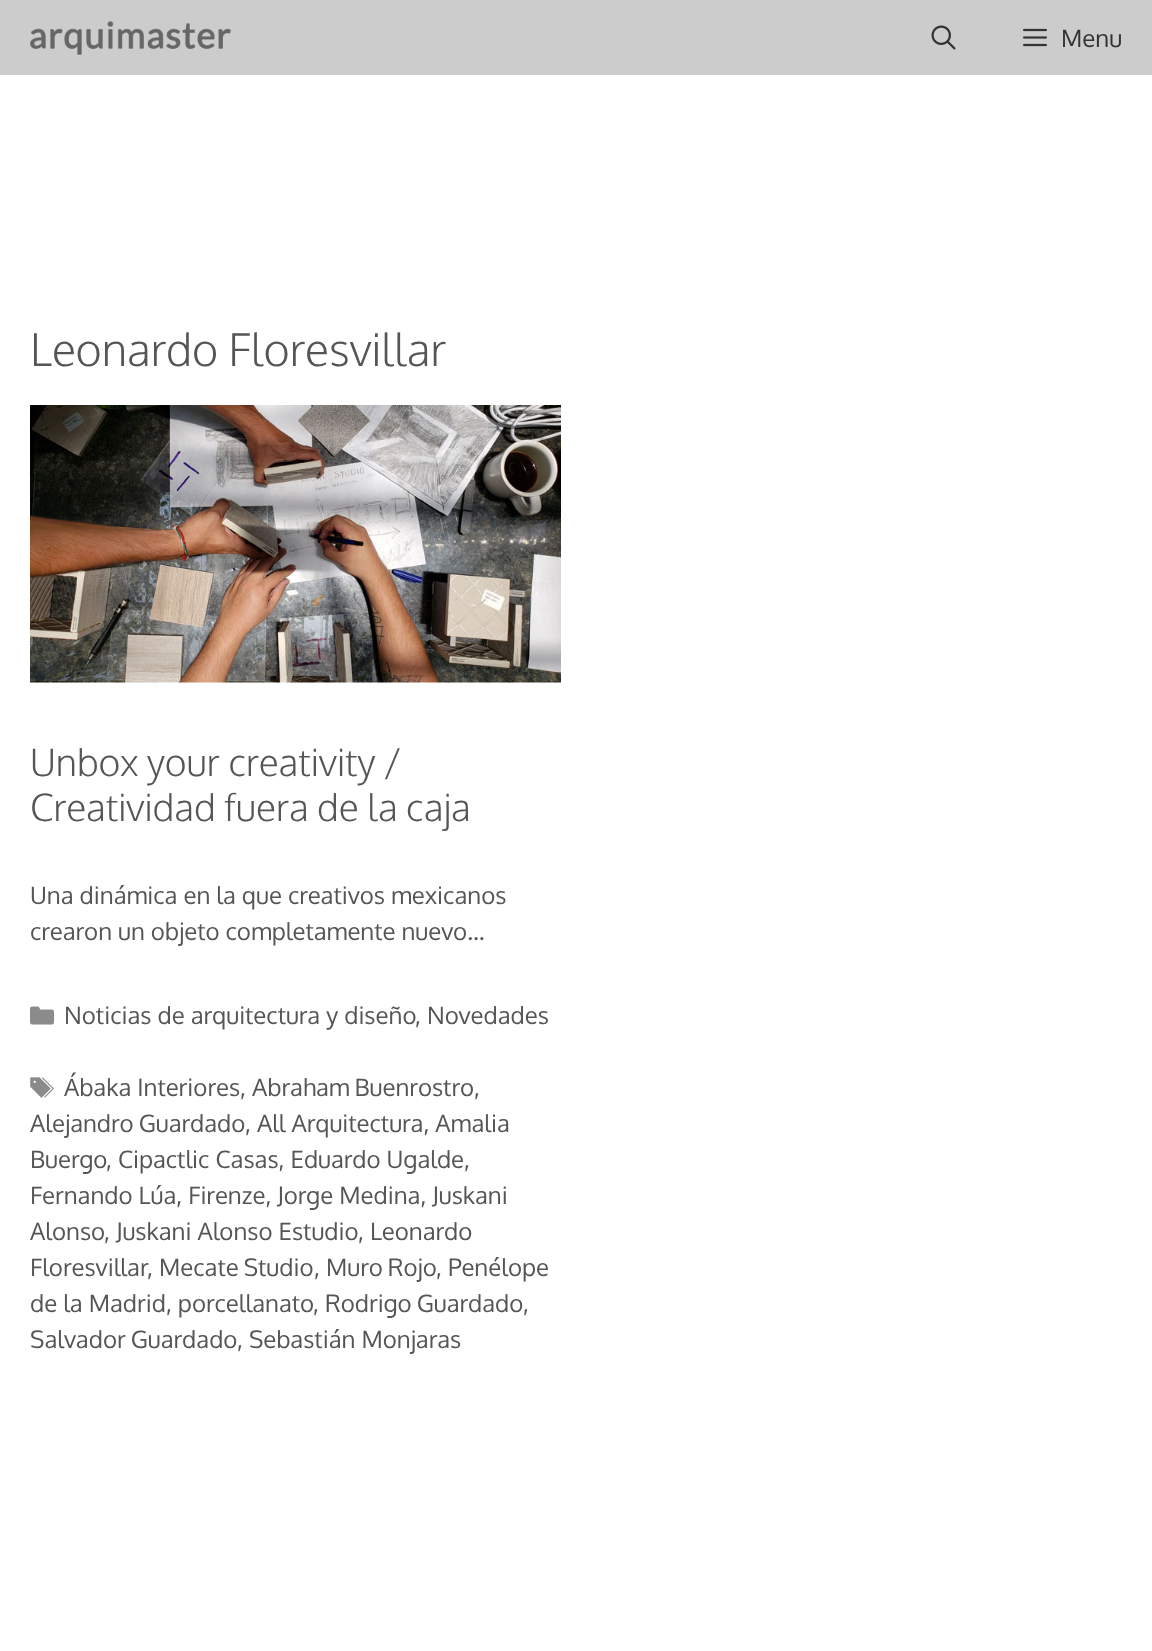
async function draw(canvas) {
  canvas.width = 1152
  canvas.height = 1651
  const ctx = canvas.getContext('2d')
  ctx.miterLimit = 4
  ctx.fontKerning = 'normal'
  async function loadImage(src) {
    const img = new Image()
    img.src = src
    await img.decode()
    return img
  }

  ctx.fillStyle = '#ccc'
  ctx.fillRect(0, 0, 1152, 1651)
  ctx.drawImage(await loadImage('image0.png'), 30, 21, 201, 34)
  ctx.drawImage(await loadImage('image1.png'), 931, 25, 25, 25)
  ctx.drawImage(await loadImage('image2.png'), 1023, 28, 24, 19)
  ctx.font = '24px Oxygen'
  ctx.fillStyle = '#333'
  ctx.fillText('Menu', 1061, 47)
  ctx.fillStyle = '#fff'
  ctx.fillRect(0, 75, 1152, 1576)
  ctx.font = '300 45px Oxygen'
  ctx.fillStyle = '#555'
  ctx.fillText('Leonardo Floresvillar', 30, 366)
  ctx.drawImage(await loadImage('image3.png'), 30, 405, 531, 278)
  ctx.font = '300 37.5px Oxygen'
  ctx.fillText('Unbox your creativity /', 30, 776)
  ctx.fillText('Creatividad fuera de la caja', 30, 821)
  ctx.font = '24px Oxygen'
  ctx.fillText('Una dinámica en la que creativos mexicanos', 30, 904)
  ctx.fillText('crearon un objeto completamente nuevo…', 30, 940)
  ctx.drawImage(await loadImage('image4.png'), 30, 1006, 24, 19)
  ctx.fillText('Noticias de arquitectura y diseño', 64, 1024)
  ctx.fillText(', Novedades', 415, 1024)
  ctx.drawImage(await loadImage('image5.png'), 30, 1077, 24, 21)
  ctx.fillText('Ábaka Interiores,', 64, 1096)
  ctx.wordSpacing = '-1px'
  ctx.fillText('Abraham Buenrostro', 252, 1096)
  ctx.wordSpacing = '0px'
  ctx.fillText(',', 474, 1096)
  ctx.wordSpacing = '-1px'
  ctx.fillText('Alejandro Guardado', 30, 1132)
  ctx.wordSpacing = '0px'
  ctx.fillText(', All Arquitectura, Amalia', 245, 1132)
  ctx.fillText('Buergo', 30, 1168)
  ctx.fillText(', Cipactlic Casas, Eduardo Ugalde,', 106, 1168)
  ctx.fillText('Fernando Lúa, Firenze, Jorge Medina, Juskani', 30, 1204)
  ctx.fillText('Alonso', 30, 1240)
  ctx.fillText(',', 104, 1240)
  ctx.fillText('Juskani Alonso Estudio', 116, 1240)
  ctx.fillText(', Leonardo', 358, 1240)
  ctx.fillText('Floresvillar', 30, 1276)
  ctx.fillText(',', 147, 1276)
  ctx.wordSpacing = '-1px'
  ctx.fillText('Mecate Studio', 159, 1276)
  ctx.wordSpacing = '0px'
  ctx.fillText(',', 314, 1276)
  ctx.wordSpacing = '-1px'
  ctx.fillText('Muro Rojo', 326, 1276)
  ctx.wordSpacing = '0px'
  ctx.fillText(', Penélope', 436, 1276)
  ctx.fillText('de la Madrid, porcellanato', 30, 1312)
  ctx.fillText(',', 313, 1312)
  ctx.wordSpacing = '-1px'
  ctx.fillText('Rodrigo Guardado', 325, 1312)
  ctx.wordSpacing = '0px'
  ctx.fillText(',', 523, 1312)
  ctx.wordSpacing = '-1px'
  ctx.fillText('Salvador Guardado', 30, 1348)
  ctx.wordSpacing = '0px'
  ctx.fillText(', Sebastián Monjaras', 237, 1348)
}

draw(document.querySelector('canvas'))
